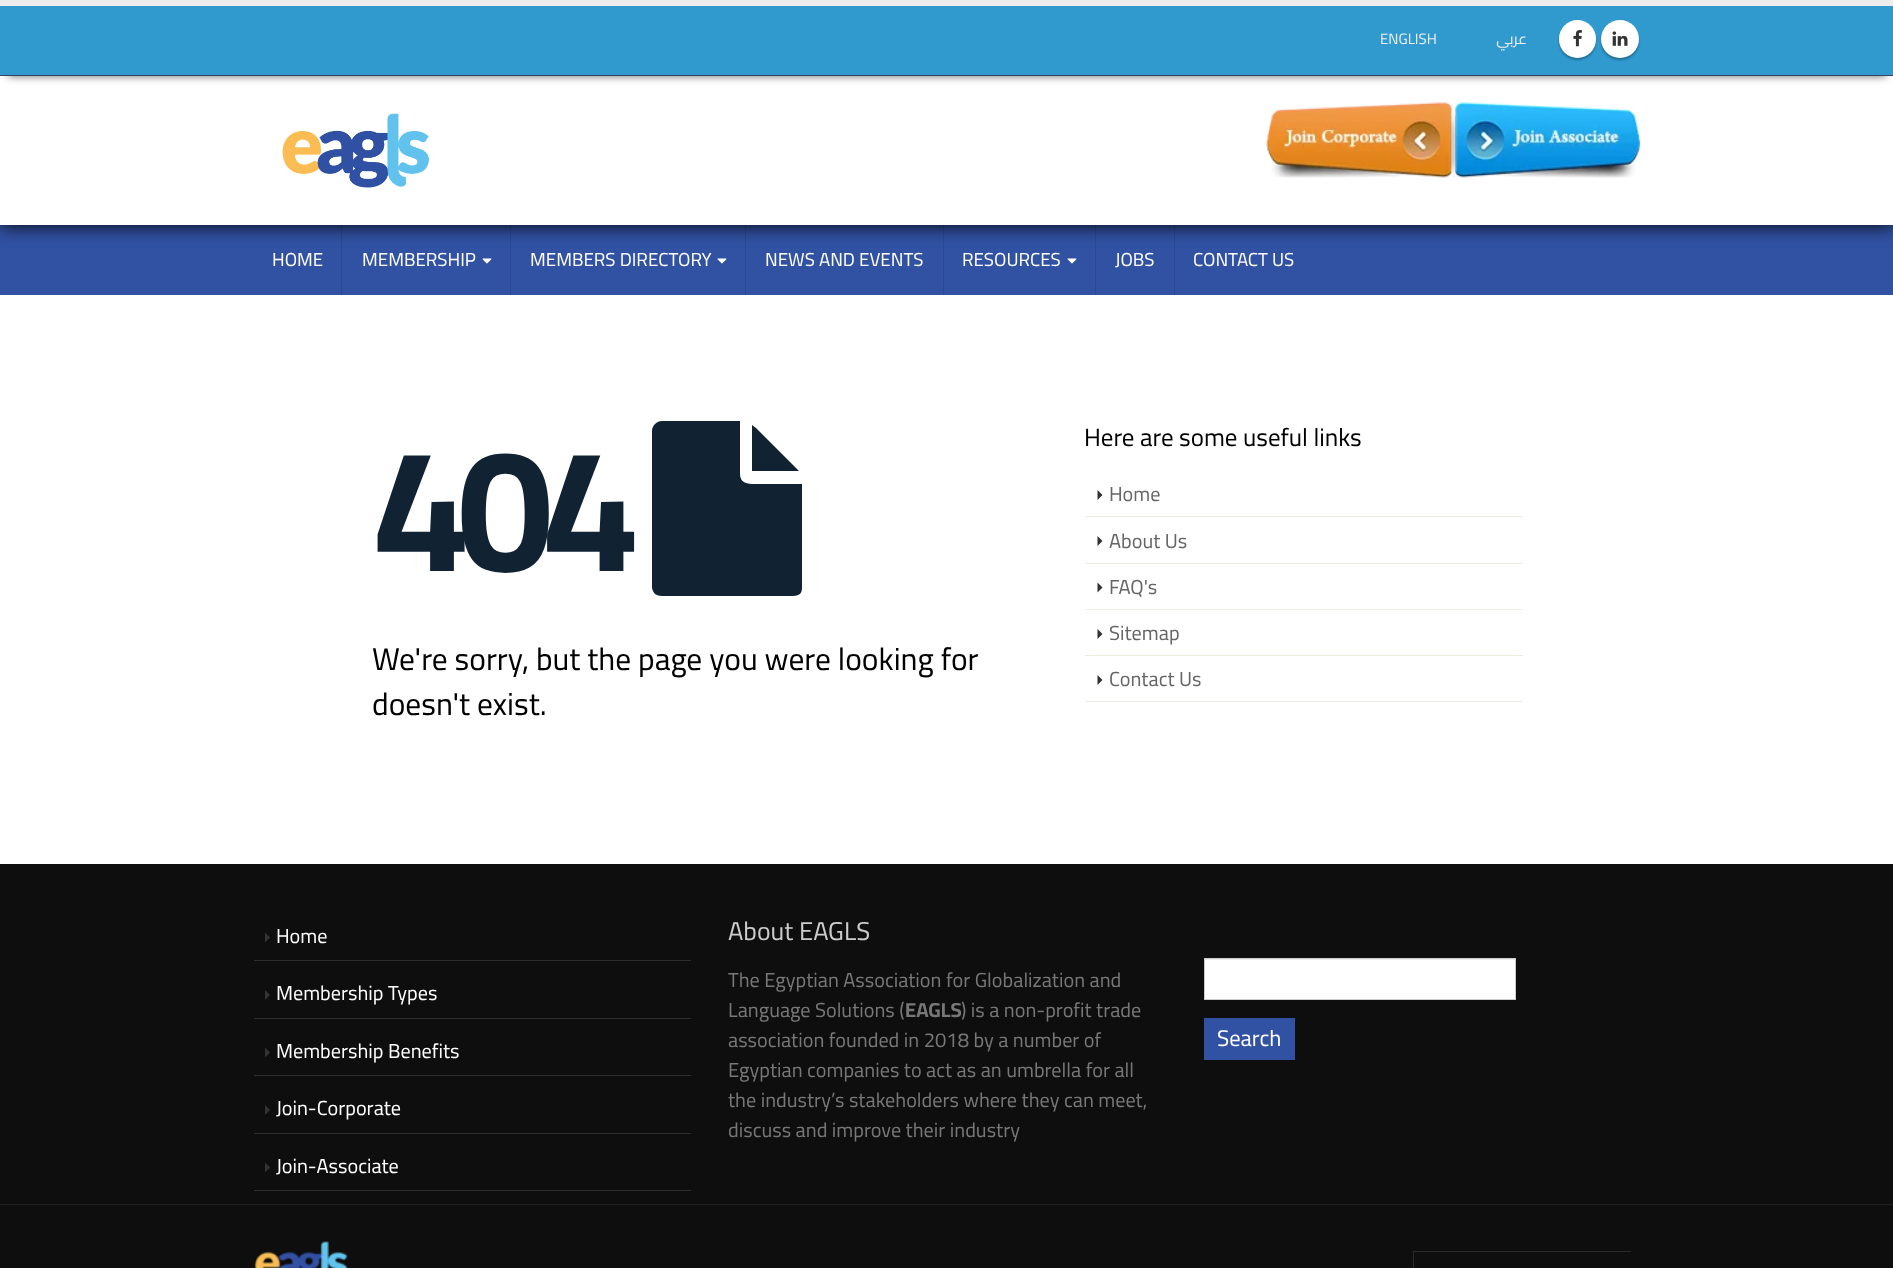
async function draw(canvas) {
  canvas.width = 1893
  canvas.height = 1268
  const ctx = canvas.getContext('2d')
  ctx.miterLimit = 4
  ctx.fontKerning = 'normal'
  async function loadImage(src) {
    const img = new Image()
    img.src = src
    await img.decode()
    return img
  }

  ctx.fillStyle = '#fff'
  ctx.fillRect(0, 0, 1893, 1268)
  ctx.fillStyle = '#ededed'
  ctx.fillRect(0, 0, 1893, 6)
  ctx.fillStyle = '#3151a3'
  ctx.fillRect(0, 225, 1893, 70)
  ctx.fillStyle = '#000'
  ctx.filter = 'blur(9.5px)'
  ctx.beginPath()
  ctx.rect(0, 76, 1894, 149)
  ctx.fill()
  ctx.filter = 'none'
  ctx.fillStyle = '#fff'
  ctx.fillRect(0, 76, 1893, 149)
  ctx.fillStyle = '#666'
  ctx.filter = 'blur(4px)'
  ctx.beginPath()
  ctx.rect(8, 21, 1878, 55)
  ctx.fill()
  ctx.filter = 'none'
  ctx.fillStyle = '#309acf'
  ctx.fillRect(0, 6, 1893, 69)
  ctx.fillStyle = '#346'
  ctx.fillRect(0, 75, 1893, 1)
  ctx.font = '15px Cairo'
  ctx.fillStyle = '#eee'
  ctx.fillText('ENGLISH', 1380, 44)
  ctx.direction = 'rtl'
  ctx.fillText('عربي', 1527, 44)
  ctx.fillStyle = '#0000004d'
  ctx.filter = 'blur(1px)'
  ctx.beginPath()
  ctx.roundRect(1559, 23, 37, 37, 18.5)
  ctx.fill()
  ctx.filter = 'none'
  ctx.fillStyle = '#fff'
  ctx.beginPath()
  ctx.roundRect(1559, 20, 37, 38, 18.5)
  ctx.fill()
  ctx.drawImage(await loadImage('image0.png'), 1573, 30, 9, 17)
  ctx.fillStyle = '#0000004d'
  ctx.filter = 'blur(1px)'
  ctx.beginPath()
  ctx.roundRect(1601, 23, 38, 37, 18.5)
  ctx.fill()
  ctx.filter = 'none'
  ctx.fillStyle = '#fff'
  ctx.beginPath()
  ctx.arc(1620, 39, 19, 0, 2 * Math.PI)
  ctx.fill()
  ctx.drawImage(await loadImage('image1.png'), 1612, 31, 16, 15)
  ctx.drawImage(await loadImage('image2.png'), 282, 113, 147, 75)
  ctx.drawImage(await loadImage('image3.png'), 1266, 102, 187, 76)
  ctx.drawImage(await loadImage('image4.png'), 1452, 102, 188, 76)
  ctx.fillStyle = '#0000001a'
  ctx.fillRect(341, 225, 1, 70)
  ctx.direction = 'ltr'
  ctx.font = '18.75px Cairo'
  ctx.fillStyle = '#fff'
  ctx.fillText('HOME', 272, 266)
  ctx.fillStyle = '#0000001a'
  ctx.fillRect(510, 225, 1, 70)
  ctx.fillStyle = '#fff'
  ctx.fillText('MEMBERSHIP', 362, 266)
  ctx.drawImage(await loadImage('image5.png'), 482, 258, 10, 6)
  ctx.fillStyle = '#0000001a'
  ctx.fillRect(745, 225, 1, 70)
  ctx.fillStyle = '#fff'
  ctx.fillText('MEMBERS DIRECTORY', 530, 266)
  ctx.drawImage(await loadImage('image5.png'), 717, 258, 10, 6)
  ctx.fillStyle = '#0000001a'
  ctx.fillRect(943, 225, 1, 70)
  ctx.fillStyle = '#fff'
  ctx.fillText('NEWS AND EVENTS', 765, 266)
  ctx.fillStyle = '#0000001a'
  ctx.fillRect(1095, 225, 1, 70)
  ctx.fillStyle = '#fff'
  ctx.fillText('RESOURCES', 962, 266)
  ctx.drawImage(await loadImage('image5.png'), 1067, 258, 10, 6)
  ctx.fillStyle = '#0000001a'
  ctx.fillRect(1174, 225, 1, 70)
  ctx.fillStyle = '#fff'
  ctx.fillText('JOBS', 1115, 266)
  ctx.fillText('CONTACT US', 1193, 266)
  ctx.letterSpacing = '-12.5px'
  ctx.font = 'bold 175px Cairo'
  ctx.fillStyle = '#123'
  ctx.fillText('404', 372, 571)
  ctx.beginPath()
  ctx.moveTo(752, 471)
  ctx.lineTo(752, 425)
  ctx.lineTo(756, 428)
  ctx.lineTo(796, 468)
  ctx.lineTo(799, 471)
  ctx.closePath()
  ctx.moveTo(740, 474)
  ctx.bezierCurveTo(740, 485, 751, 484, 758, 484)
  ctx.lineTo(802, 484)
  ctx.lineTo(802, 587)
  ctx.bezierCurveTo(802, 589, 802, 592, 800, 594)
  ctx.bezierCurveTo(798, 595, 796, 596, 793, 596)
  ctx.lineTo(662, 596)
  ctx.bezierCurveTo(659, 596, 657, 595, 655, 594)
  ctx.bezierCurveTo(653, 592, 652, 589, 652, 587)
  ctx.lineTo(652, 431)
  ctx.bezierCurveTo(652, 428, 653, 426, 655, 424)
  ctx.bezierCurveTo(657, 422, 659, 421, 662, 421)
  ctx.lineTo(740, 421)
  ctx.closePath()
  ctx.fill()
  ctx.letterSpacing = '0px'
  ctx.font = '31.5px Cairo'
  ctx.fillStyle = '#000'
  ctx.fillText('We\'re sorry, but the page you were looking for', 372, 670)
  ctx.fillText('doesn\'t exist.', 372, 715)
  ctx.font = '25px Cairo'
  ctx.fillText('Here are some useful links', 1084, 446)
  ctx.fillStyle = '#ededde'
  ctx.fillRect(1085, 516, 438, 1)
  ctx.fillStyle = '#333'
  ctx.beginPath()
  ctx.moveTo(1097.5, 500)
  ctx.lineTo(1097.5, 490)
  ctx.lineTo(1102.5, 495)
  ctx.closePath()
  ctx.fill()
  ctx.font = '20.25px Cairo'
  ctx.fillStyle = '#666'
  ctx.fillText('Home', 1109, 501)
  ctx.fillStyle = '#ededde'
  ctx.fillRect(1085, 563, 438, 1)
  ctx.fillStyle = '#333'
  ctx.beginPath()
  ctx.moveTo(1097.5, 546)
  ctx.lineTo(1097.5, 536)
  ctx.lineTo(1102.5, 541)
  ctx.closePath()
  ctx.fill()
  ctx.fillStyle = '#666'
  ctx.fillText('About Us', 1109, 548)
  ctx.fillStyle = '#ededde'
  ctx.fillRect(1085, 609, 438, 1)
  ctx.fillStyle = '#333'
  ctx.beginPath()
  ctx.moveTo(1097.5, 592.5)
  ctx.lineTo(1097.5, 582.5)
  ctx.lineTo(1102.5, 587.5)
  ctx.closePath()
  ctx.fill()
  ctx.fillStyle = '#666'
  ctx.fillText('FAQ\'s', 1109, 594)
  ctx.fillStyle = '#ededde'
  ctx.fillRect(1085, 655, 438, 1)
  ctx.fillStyle = '#333'
  ctx.beginPath()
  ctx.moveTo(1097.5, 639)
  ctx.lineTo(1097.5, 629)
  ctx.lineTo(1102.5, 634)
  ctx.closePath()
  ctx.fill()
  ctx.fillStyle = '#666'
  ctx.fillText('Sitemap', 1109, 640)
  ctx.fillStyle = '#ededde'
  ctx.fillRect(1085, 701, 438, 1)
  ctx.fillStyle = '#333'
  ctx.beginPath()
  ctx.moveTo(1097.5, 685)
  ctx.lineTo(1097.5, 675)
  ctx.lineTo(1102.5, 680)
  ctx.closePath()
  ctx.fill()
  ctx.fillStyle = '#666'
  ctx.fillText('Contact Us', 1109, 686)
  ctx.fillStyle = '#0e0e0e'
  ctx.fillRect(0, 864, 1893, 404)
  ctx.fillStyle = '#2e2e2e'
  ctx.fillRect(254, 1190, 437, 1)
  ctx.fillStyle = '#333'
  ctx.beginPath()
  ctx.moveTo(265, 942.5)
  ctx.lineTo(265, 932.5)
  ctx.lineTo(270, 937.5)
  ctx.closePath()
  ctx.fill()
  ctx.fillStyle = '#fff'
  ctx.fillText('Home', 276, 943)
  ctx.fillStyle = '#2e2e2e'
  ctx.fillRect(254, 960, 437, 1)
  ctx.fillStyle = '#333'
  ctx.beginPath()
  ctx.moveTo(265, 1000)
  ctx.lineTo(265, 990)
  ctx.lineTo(270, 995)
  ctx.closePath()
  ctx.fill()
  ctx.fillStyle = '#fff'
  ctx.fillText('Membership Types', 276, 1000)
  ctx.fillStyle = '#2e2e2e'
  ctx.fillRect(254, 1018, 437, 1)
  ctx.fillStyle = '#333'
  ctx.beginPath()
  ctx.moveTo(265, 1057.5)
  ctx.lineTo(265, 1047.5)
  ctx.lineTo(270, 1052.5)
  ctx.closePath()
  ctx.fill()
  ctx.fillStyle = '#fff'
  ctx.fillText('Membership Benefits', 276, 1058)
  ctx.fillStyle = '#2e2e2e'
  ctx.fillRect(254, 1075, 437, 1)
  ctx.fillStyle = '#333'
  ctx.beginPath()
  ctx.moveTo(265, 1115)
  ctx.lineTo(265, 1105)
  ctx.lineTo(270, 1110)
  ctx.closePath()
  ctx.fill()
  ctx.fillStyle = '#fff'
  ctx.fillText('Join-Corporate', 276, 1115)
  ctx.fillStyle = '#2e2e2e'
  ctx.fillRect(254, 1133, 437, 1)
  ctx.fillStyle = '#333'
  ctx.beginPath()
  ctx.moveTo(265, 1172.5)
  ctx.lineTo(265, 1162.5)
  ctx.lineTo(270, 1167.5)
  ctx.closePath()
  ctx.fill()
  ctx.fillStyle = '#fff'
  ctx.fillText('Join-Associate', 276, 1173)
  ctx.font = '25.75px Cairo'
  ctx.fillStyle = '#ccc'
  ctx.fillText('About EAGLS', 728, 940)
  ctx.font = '20.25px Cairo'
  ctx.fillStyle = '#777'
  ctx.fillText('The Egyptian Association for Globalization and', 728, 987)
  ctx.fillText('Language Solutions (', 728, 1017)
  ctx.font = 'bold 20.25px Cairo'
  ctx.fillText('EAGLS', 905, 1017)
  ctx.font = '20.25px Cairo'
  ctx.fillText(') is a non-profit trade', 961, 1017)
  ctx.fillText('association founded in 2018 by a number of', 728, 1047)
  ctx.fillText('Egyptian companies to act as an umbrella for all', 728, 1077)
  ctx.fillText('the industry’s stakeholders where they can meet,', 728, 1107)
  ctx.fillText('discuss and improve their industry', 728, 1137)
  ctx.fillStyle = '#fff'
  ctx.fillRect(1205, 960, 310, 39)
  ctx.fillStyle = '#ececec'
  ctx.fillRect(1205, 959, 310, 1)
  ctx.strokeStyle = '#ccc'
  ctx.strokeRect(1204.5, 958.5, 311, 41)
  ctx.fillStyle = '#3151a3'
  ctx.fillRect(1204, 1018, 91, 42)
  ctx.font = '22.5px Cairo'
  ctx.fillStyle = '#fff'
  ctx.fillText('Search', 1217, 1046)
  ctx.fillStyle = '#222'
  ctx.fillRect(0, 1204, 1893, 1)
  ctx.drawImage(await loadImage('image6.png'), 254, 1241, 94, 27)
  ctx.fillStyle = '#2a2a2a'
  ctx.fillRect(1413, 1251, 218, 1)
  ctx.fillRect(1413, 1251, 1, 17)
}

draw(document.querySelector('canvas'))
